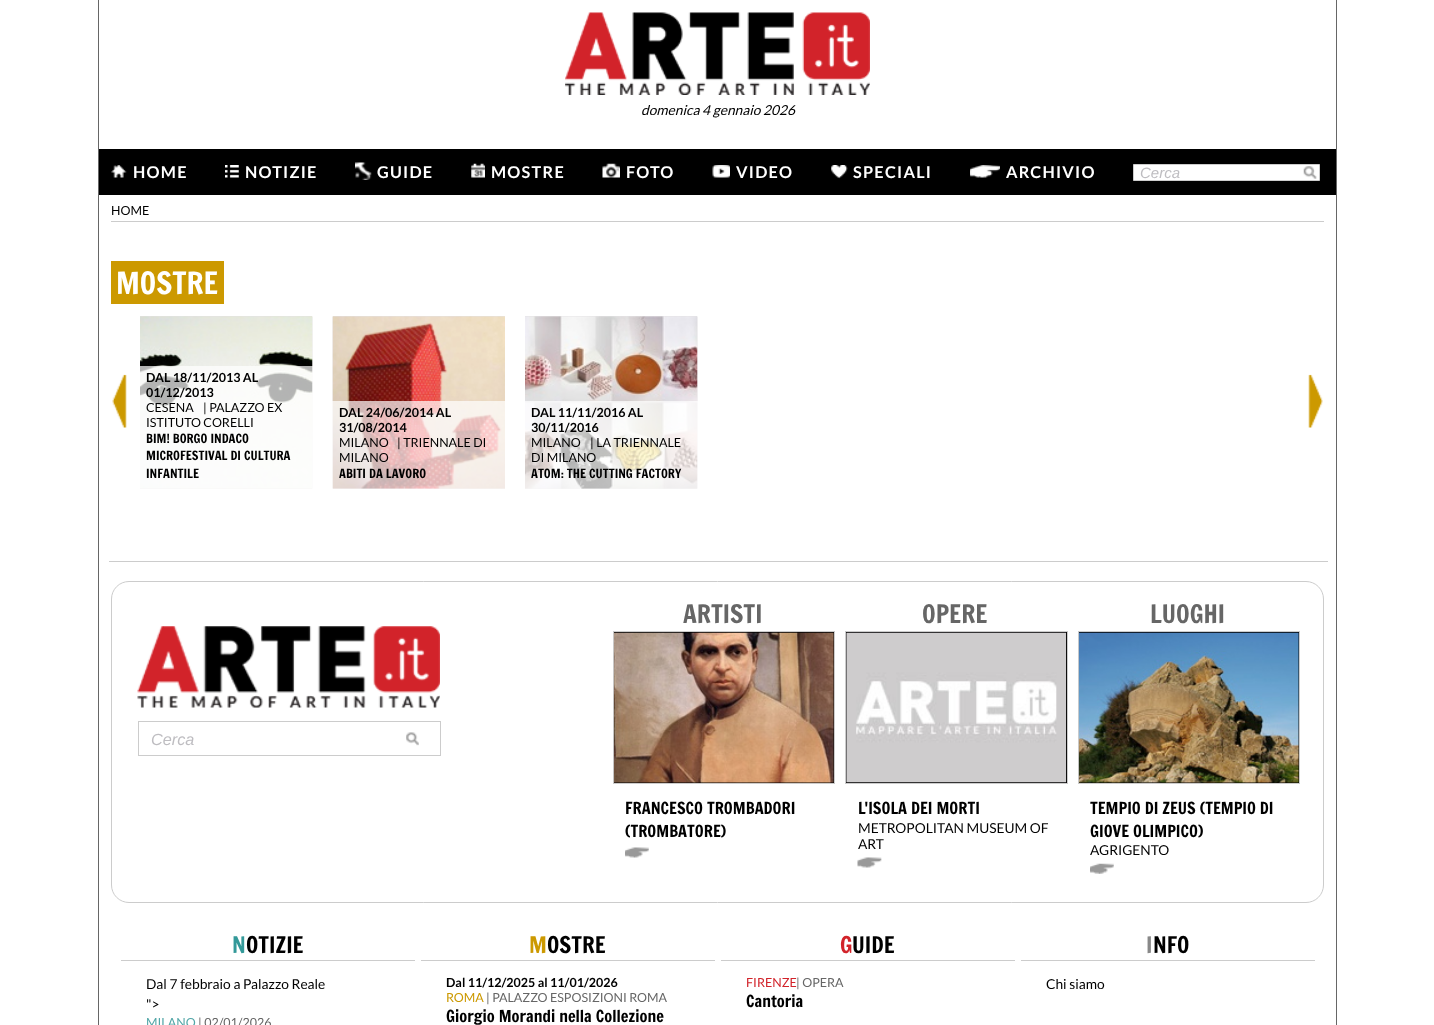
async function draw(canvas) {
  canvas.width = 1434
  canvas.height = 1025
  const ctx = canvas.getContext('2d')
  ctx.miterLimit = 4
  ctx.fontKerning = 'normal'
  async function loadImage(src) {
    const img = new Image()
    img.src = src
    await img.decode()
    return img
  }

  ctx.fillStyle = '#fff'
  ctx.fillRect(0, 0, 1434, 1025)
  ctx.drawImage(await loadImage('image0.png'), 565, 12, 305, 83)
  ctx.font = 'italic 13.75px Lato'
  ctx.fillStyle = '#000'
  ctx.fillText('domenica 4 gennaio 2026', 641, 115)
  ctx.fillRect(99, 149, 1237, 46)
  ctx.drawImage(await loadImage('image1.png'), 111, 165, 16, 13)
  ctx.letterSpacing = '1.25px'
  ctx.font = 'bold 16.25px Lato'
  ctx.fillStyle = '#fff'
  ctx.fillText('HOME', 133, 178)
  ctx.drawImage(await loadImage('image2.png'), 225, 165, 14, 13)
  ctx.fillText('NOTIZIE', 245, 178)
  ctx.drawImage(await loadImage('image3.png'), 355, 162, 17, 18)
  ctx.fillText('GUIDE', 377, 178)
  ctx.drawImage(await loadImage('image4.png'), 471, 163, 14, 15)
  ctx.fillText('MOSTRE', 491, 178)
  ctx.drawImage(await loadImage('image5.png'), 602, 163, 18, 15)
  ctx.fillText('FOTO', 626, 178)
  ctx.drawImage(await loadImage('image6.png'), 712, 165, 18, 13)
  ctx.fillText('VIDEO', 736, 178)
  ctx.drawImage(await loadImage('image7.png'), 831, 165, 17, 14)
  ctx.fillText('SPECIALI', 853, 178)
  ctx.drawImage(await loadImage('image8.png'), 970, 165, 30, 13)
  ctx.fillText('ARCHIVIO', 1006, 178)
  ctx.beginPath()
  ctx.rect(1133.5, 164.5, 186, 16)
  ctx.fill()
  ctx.strokeStyle = '#ccc'
  ctx.stroke()
  ctx.letterSpacing = '0px'
  ctx.font = 'italic 15px Liberation Sans'
  ctx.fillStyle = '#bebdc1'
  ctx.fillText('Cerca', 1140, 178)
  ctx.drawImage(await loadImage('image9.png'), 1303, 166, 14, 13)
  ctx.fillStyle = '#666'
  ctx.fillRect(1336, 0, 1, 1025)
  ctx.fillRect(98, 0, 1, 1025)
  ctx.fillStyle = '#ccc'
  ctx.fillRect(111, 221, 1213, 1)
  ctx.font = '12.5px Lato'
  ctx.fillStyle = '#000'
  ctx.fillText('HOME', 111, 215)
  ctx.fillStyle = '#c90'
  ctx.fillRect(111, 261, 113, 43)
  ctx.font = '30px Francois One'
  ctx.fillStyle = '#fff'
  ctx.fillText('MOSTRE', 116, 294)
  ctx.drawImage(await loadImage('image10.png'), 112, 374, 15, 54)
  ctx.drawImage(await loadImage('image11.png'), 140, 316, 173, 173)
  ctx.drawImage(await loadImage('image12.png'), 140, 316, 173, 173)
  ctx.fillStyle = '#ffffffb3'
  ctx.fillRect(140, 366, 173, 123)
  ctx.font = 'bold 12.5px Lato'
  ctx.fillStyle = '#000'
  ctx.fillText('DAL 18/11/2013 AL', 146, 382)
  ctx.fillText('01/12/2013', 146, 397)
  ctx.font = '12.5px Lato'
  ctx.fillText('CESENA', 146, 412)
  ctx.fillText('| PALAZZO EX', 203, 412)
  ctx.fillText('ISTITUTO CORELLI', 146, 427)
  ctx.font = '12.5px Francois One'
  ctx.fillText('BIM! BORGO INDACO', 146, 443)
  ctx.fillText('MICROFESTIVAL DI CULTURA', 146, 460)
  ctx.fillText('INFANTILE', 146, 478)
  ctx.drawImage(await loadImage('image13.png'), 332, 316, 173, 173)
  ctx.drawImage(await loadImage('image14.png'), 332, 316, 173, 173)
  ctx.fillStyle = '#ffffffb3'
  ctx.fillRect(332, 401, 173, 88)
  ctx.font = 'bold 12.5px Lato'
  ctx.fillStyle = '#000'
  ctx.fillText('DAL 24/06/2014 AL', 339, 417)
  ctx.fillText('31/08/2014', 339, 432)
  ctx.font = '12.5px Lato'
  ctx.fillText('MILANO', 339, 447)
  ctx.fillText('| TRIENNALE DI', 397, 447)
  ctx.fillText('MILANO', 339, 462)
  ctx.font = '12.5px Francois One'
  ctx.fillText('ABITI DA LAVORO', 339, 478)
  ctx.drawImage(await loadImage('image15.png'), 525, 316, 173, 173)
  ctx.drawImage(await loadImage('image16.png'), 525, 316, 173, 173)
  ctx.fillStyle = '#ffffffb3'
  ctx.fillRect(525, 401, 173, 88)
  ctx.font = 'bold 12.5px Lato'
  ctx.fillStyle = '#000'
  ctx.fillText('DAL 11/11/2016 AL', 531, 417)
  ctx.fillText('30/11/2016', 531, 432)
  ctx.font = '12.5px Lato'
  ctx.fillText('MILANO', 531, 447)
  ctx.fillText('| LA TRIENNALE', 590, 447)
  ctx.fillText('DI MILANO', 531, 462)
  ctx.font = '12.5px Francois One'
  ctx.fillText('ATOM: THE CUTTING FACTORY', 531, 478)
  ctx.drawImage(await loadImage('image17.png'), 1308, 374, 15, 54)
  ctx.fillStyle = '#ccc'
  ctx.fillRect(109, 561, 1219, 1)
  ctx.beginPath()
  ctx.roundRect(111.5, 581.5, 1212, 321, 17.5)
  ctx.stroke()
  ctx.drawImage(await loadImage('image18.png'), 137, 626, 303, 82)
  ctx.strokeRect(138.5, 721.5, 302, 34)
  ctx.font = 'italic 16.25px Liberation Sans'
  ctx.fillStyle = '#bebdc1'
  ctx.fillText('Cerca', 151, 745)
  ctx.drawImage(await loadImage('image19.png'), 406, 732, 13, 14)
  ctx.font = '25px Francois One'
  ctx.fillStyle = '#666'
  ctx.fillText('ARTISTI', 683, 623)
  ctx.fillStyle = '#000'
  ctx.beginPath()
  ctx.rect(613.5, 631.5, 221, 152)
  ctx.fill()
  ctx.stroke()
  ctx.drawImage(await loadImage('image20.png'), 613, 632, 221, 151)
  ctx.font = '16.25px Francois One'
  ctx.fillText('FRANCESCO TROMBADORI', 625, 814)
  ctx.fillText('(TROMBATORE)', 625, 837)
  ctx.drawImage(await loadImage('image21.png'), 625, 847, 24, 11)
  ctx.font = '25px Francois One'
  ctx.fillStyle = '#666'
  ctx.fillText('OPERE', 922, 623)
  ctx.fillStyle = '#000'
  ctx.beginPath()
  ctx.rect(845.5, 631.5, 222, 152)
  ctx.fill()
  ctx.stroke()
  ctx.drawImage(await loadImage('image22.png'), 846, 632, 221, 151)
  ctx.font = '16.25px Francois One'
  ctx.fillText('L\'ISOLA DEI MORTI', 858, 814)
  ctx.font = '13.75px Lato'
  ctx.fillText('METROPOLITAN MUSEUM OF', 858, 833)
  ctx.fillText('ART', 858, 849)
  ctx.drawImage(await loadImage('image23.png'), 857, 857, 25, 11)
  ctx.font = '25px Francois One'
  ctx.fillStyle = '#666'
  ctx.fillText('LUOGHI', 1150, 623)
  ctx.fillStyle = '#000'
  ctx.beginPath()
  ctx.rect(1078.5, 631.5, 221, 152)
  ctx.fill()
  ctx.stroke()
  ctx.drawImage(await loadImage('image24.png'), 1078, 632, 221, 151)
  ctx.font = '16.25px Francois One'
  ctx.fillText('TEMPIO DI ZEUS (TEMPIO DI', 1090, 814)
  ctx.fillText('GIOVE OLIMPICO)', 1090, 837)
  ctx.font = '13.75px Lato'
  ctx.fillText('AGRIGENTO', 1090, 855)
  ctx.drawImage(await loadImage('image25.png'), 1090, 863, 24, 11)
  ctx.fillStyle = '#ccc'
  ctx.fillRect(121, 960, 294, 1)
  ctx.font = '22.5px Francois One'
  ctx.fillStyle = '#399'
  ctx.fillText('N', 232, 953)
  ctx.fillStyle = '#000'
  ctx.fillText('OTIZIE', 246, 953)
  ctx.font = '13.75px Lato'
  ctx.fillText('Dal 7 febbraio a Palazzo Reale', 146, 989)
  ctx.fillText('">', 146, 1009)
  ctx.font = '12.5px Lato'
  ctx.fillStyle = '#51a6a7'
  ctx.fillText('MILANO', 146, 1027)
  ctx.fillStyle = '#666'
  ctx.fillText('| 02/01/2026', 198, 1027)
  ctx.fillStyle = '#ccc'
  ctx.fillRect(421, 960, 294, 1)
  ctx.font = '22.5px Francois One'
  ctx.fillStyle = '#c90'
  ctx.fillText('M', 529, 953)
  ctx.fillStyle = '#000'
  ctx.fillText('OSTRE', 547, 953)
  ctx.font = 'bold 12.5px Lato'
  ctx.fillText('Dal 11/12/2025 al 11/01/2026', 446, 987)
  ctx.font = '12.5px Lato'
  ctx.fillStyle = '#c90'
  ctx.fillText('ROMA', 446, 1002)
  ctx.fillStyle = '#666'
  ctx.fillText('| PALAZZO ESPOSIZIONI ROMA', 486, 1002)
  ctx.font = '16.25px Francois One'
  ctx.fillStyle = '#000'
  ctx.fillText('Giorgio Morandi nella Collezione', 446, 1022)
  ctx.fillStyle = '#ccc'
  ctx.fillRect(721, 960, 294, 1)
  ctx.font = '22.5px Francois One'
  ctx.fillStyle = '#d2232a'
  ctx.fillText('G', 840, 953)
  ctx.fillStyle = '#000'
  ctx.fillText('UIDE', 852, 953)
  ctx.font = '12.5px Lato'
  ctx.fillStyle = '#d2232a'
  ctx.fillText('FIRENZE', 746, 987)
  ctx.fillStyle = '#666'
  ctx.fillText('| OPERA', 796, 987)
  ctx.font = '16.25px Francois One'
  ctx.fillStyle = '#000'
  ctx.fillText('Cantoria', 746, 1007)
  ctx.fillStyle = '#ccc'
  ctx.fillRect(1021, 960, 294, 1)
  ctx.font = '22.5px Francois One'
  ctx.fillStyle = '#888'
  ctx.fillText('I', 1146, 953)
  ctx.fillStyle = '#000'
  ctx.fillText('NFO', 1153, 953)
  ctx.font = '13.75px Lato'
  ctx.fillText('Chi siamo', 1046, 989)
}

draw(document.querySelector('canvas'))
